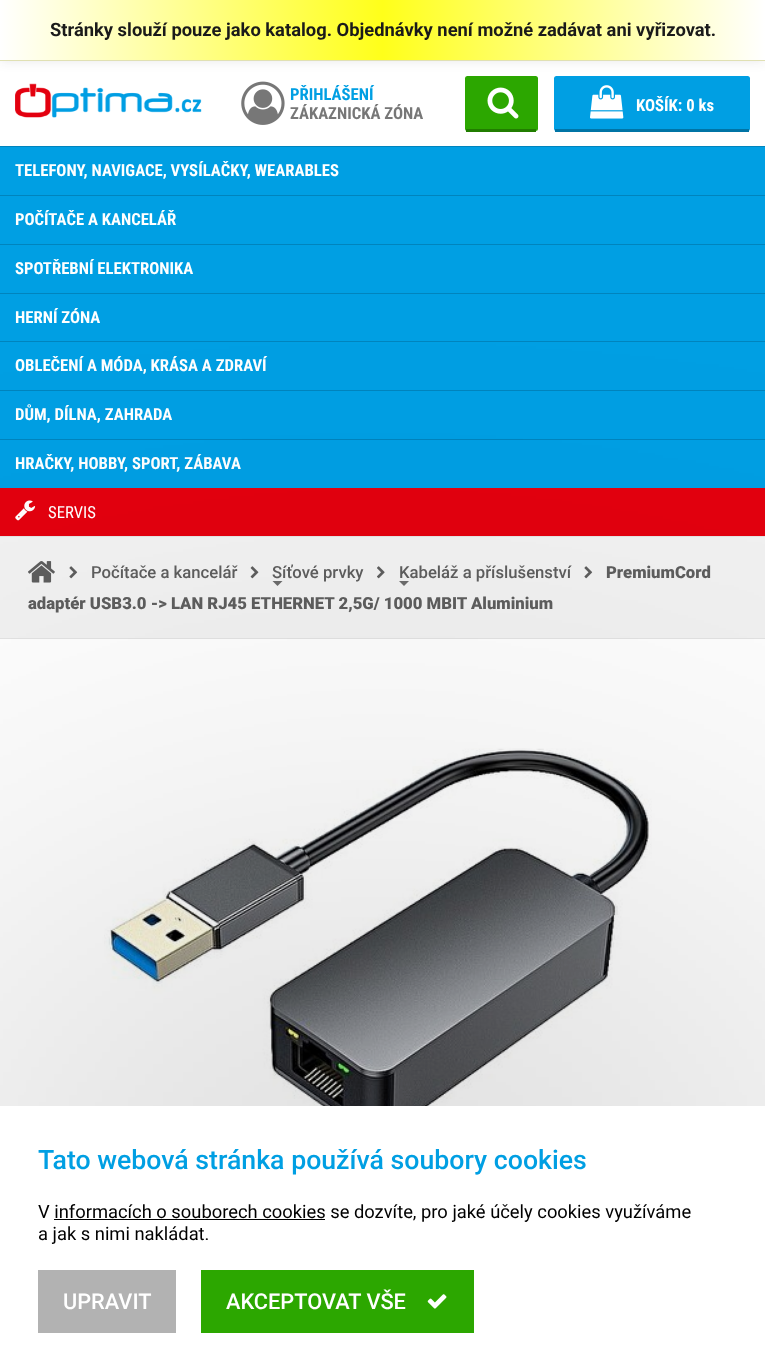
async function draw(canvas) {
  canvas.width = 765
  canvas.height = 1370
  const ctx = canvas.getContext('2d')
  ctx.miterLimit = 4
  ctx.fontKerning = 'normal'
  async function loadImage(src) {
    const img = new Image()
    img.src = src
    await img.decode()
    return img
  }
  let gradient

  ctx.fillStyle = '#fff'
  ctx.fillRect(0, 0, 765, 1370)
  ctx.fillStyle = '#2ca700'
  ctx.beginPath()
  ctx.roundRect(465, 76, 73, 55, 2.5)
  ctx.fill()
  ctx.fillStyle = '#1a1a1a1a'
  ctx.filter = 'blur(6px)'
  ctx.beginPath()
  ctx.rect(0, 0, 765, 61)
  ctx.fill()
  ctx.filter = 'none'
  gradient = ctx.createLinearGradient(0, 30, 765, 30)
  gradient.addColorStop(0, '#fff')
  gradient.addColorStop(0.5, '#ffff1a')
  gradient.addColorStop(1, '#fff')
  ctx.fillStyle = gradient
  ctx.fillRect(0, 0, 765, 60)
  ctx.fillStyle = '#e0e0b3'
  ctx.fillRect(0, 60, 765, 1)
  ctx.font = 'bold 18.35px Roboto'
  ctx.fillStyle = '#1a1a1a'
  ctx.fillText('Stránky slouží pouze jako katalog. Objednávky není možné zadávat ani vyřizovat.', 50, 36)
  ctx.drawImage(await loadImage('image0.png'), 15, 83, 187, 35)
  ctx.drawImage(await loadImage('image1.png'), 241, 81, 44, 44)
  ctx.font = 'bold 16.7px Roboto Condensed'
  ctx.fillStyle = '#009fe3'
  ctx.fillText('PŘIHLÁŠENÍ', 290, 100)
  ctx.fillStyle = '#777'
  ctx.fillText('ZÁKAZNICKÁ ZÓNA', 290, 119)
  ctx.fillStyle = '#217d00'
  ctx.fillRect(466, 129, 70, 3)
  ctx.drawImage(await loadImage('image2.png'), 487, 87, 32, 32)
  ctx.fillStyle = '#009fe3'
  ctx.beginPath()
  ctx.roundRect(554, 76, 196, 55, 2.5)
  ctx.fill()
  ctx.fillStyle = '#0074a5'
  ctx.fillRect(555, 129, 194, 3)
  ctx.drawImage(await loadImage('image3.png'), 590, 85, 34, 34)
  ctx.fillStyle = '#fff'
  ctx.fillText('KOŠÍK: 0 ks', 636, 111)
  ctx.fillStyle = '#009fe3'
  ctx.fillRect(0, 147, 765, 341)
  ctx.fillStyle = '#0084bd'
  ctx.fillRect(0, 146, 765, 1)
  ctx.fillStyle = '#fff'
  ctx.fillText('TELEFONY, NAVIGACE, VYSÍLAČKY, WEARABLES', 15, 176)
  ctx.fillStyle = '#0084bd'
  ctx.fillRect(0, 195, 765, 1)
  ctx.fillStyle = '#fff'
  ctx.fillText('POČÍTAČE A KANCELÁŘ', 15, 225)
  ctx.fillStyle = '#0084bd'
  ctx.fillRect(0, 244, 765, 1)
  ctx.fillStyle = '#fff'
  ctx.fillText('SPOTŘEBNÍ ELEKTRONIKA', 15, 274)
  ctx.fillStyle = '#0084bd'
  ctx.fillRect(0, 293, 765, 1)
  ctx.fillStyle = '#fff'
  ctx.fillText('HERNÍ ZÓNA', 15, 323)
  ctx.fillStyle = '#0084bd'
  ctx.fillRect(0, 341, 765, 1)
  ctx.fillStyle = '#fff'
  ctx.fillText('OBLEČENÍ A MÓDA, KRÁSA A ZDRAVÍ', 15, 371)
  ctx.fillStyle = '#0084bd'
  ctx.fillRect(0, 390, 765, 1)
  ctx.fillStyle = '#fff'
  ctx.fillText('DŮM, DÍLNA, ZAHRADA', 15, 420)
  ctx.fillStyle = '#0084bd'
  ctx.fillRect(0, 439, 765, 1)
  ctx.fillStyle = '#fff'
  ctx.fillText('HRAČKY, HOBBY, SPORT, ZÁBAVA', 15, 469)
  ctx.fillStyle = '#e3010f'
  ctx.fillRect(0, 488, 765, 48)
  ctx.drawImage(await loadImage('image4.png'), 15, 500, 21, 21)
  ctx.font = '16.7px Roboto Condensed'
  ctx.fillStyle = '#fff'
  ctx.fillText('SERVIS', 48, 518)
  ctx.fillStyle = '#f2f2f2'
  ctx.fillRect(0, 537, 765, 101)
  ctx.fillStyle = '#e4e4e4'
  ctx.fillRect(0, 536, 765, 1)
  ctx.drawImage(await loadImage('image5.png'), 28, 561, 27, 22)
  ctx.drawImage(await loadImage('image6.png'), 69, 566, 9, 13)
  ctx.font = '500 16.7px Roboto'
  ctx.fillStyle = '#5e5e5e'
  ctx.fillText('Počítače a kancelář', 91, 578)
  ctx.drawImage(await loadImage('image7.png'), 250, 566, 9, 13)
  ctx.fillText('Síťové prvky', 272, 578)
  ctx.fillStyle = '#6d6d6d'
  ctx.beginPath()
  ctx.moveTo(272.5, 581)
  ctx.lineTo(282.5, 581)
  ctx.lineTo(277.5, 586)
  ctx.closePath()
  ctx.fill()
  ctx.drawImage(await loadImage('image8.png'), 377, 566, 8, 13)
  ctx.fillStyle = '#5e5e5e'
  ctx.fillText('Kabeláž a příslušenství', 399, 578)
  ctx.fillStyle = '#6d6d6d'
  ctx.beginPath()
  ctx.moveTo(399, 581)
  ctx.lineTo(409, 581)
  ctx.lineTo(404, 586)
  ctx.closePath()
  ctx.fill()
  ctx.drawImage(await loadImage('image6.png'), 584, 566, 9, 13)
  ctx.font = '900 16.7px Roboto'
  ctx.fillStyle = '#5e5e5e'
  ctx.fillText('PremiumCord', 606, 578)
  ctx.fillText('adaptér USB3.0 -> LAN RJ45 ETHERNET 2,5G/ 1000 MBIT Aluminium', 28, 609)
  ctx.fillStyle = '#e4e4e4'
  ctx.fillRect(0, 638, 765, 1)
  ctx.drawImage(await loadImage('image9.png'), 104, 748, 548, 358)
  ctx.fillStyle = '#00000080'
  ctx.filter = 'blur(342.5px)'
  ctx.beginPath()
  ctx.rect(0, 1106, 765, 264)
  ctx.fill()
  ctx.filter = 'none'
  ctx.fillStyle = '#fff'
  ctx.fillRect(0, 1106, 765, 264)
  ctx.font = '500 26.7px Roboto'
  ctx.fillStyle = '#009fe3'
  ctx.fillText('Tato webová stránka používá soubory cookies', 38, 1169)
  ctx.font = '18.35px Roboto'
  ctx.fillStyle = '#000'
  ctx.fillText('V informacích o souborech cookies se dozvíte, pro jaké účely cookies využíváme', 38, 1218)
  ctx.fillRect(54, 1219, 271, 1)
  ctx.fillText('a jak s nimi nakládat.', 38, 1240)
  ctx.fillStyle = '#b2b2b2'
  ctx.fillRect(38, 1270, 138, 63)
  ctx.font = '500 21.75px Roboto'
  ctx.fillStyle = '#fff'
  ctx.fillText('UPRAVIT', 63, 1309)
  ctx.fillStyle = '#2ca700'
  ctx.fillRect(201, 1270, 273, 63)
  ctx.fillStyle = '#fff'
  ctx.fillText('AKCEPTOVAT VŠE', 226, 1309)
  ctx.drawImage(await loadImage('image10.png'), 427, 1294, 20, 15)
}

draw(document.querySelector('canvas'))
